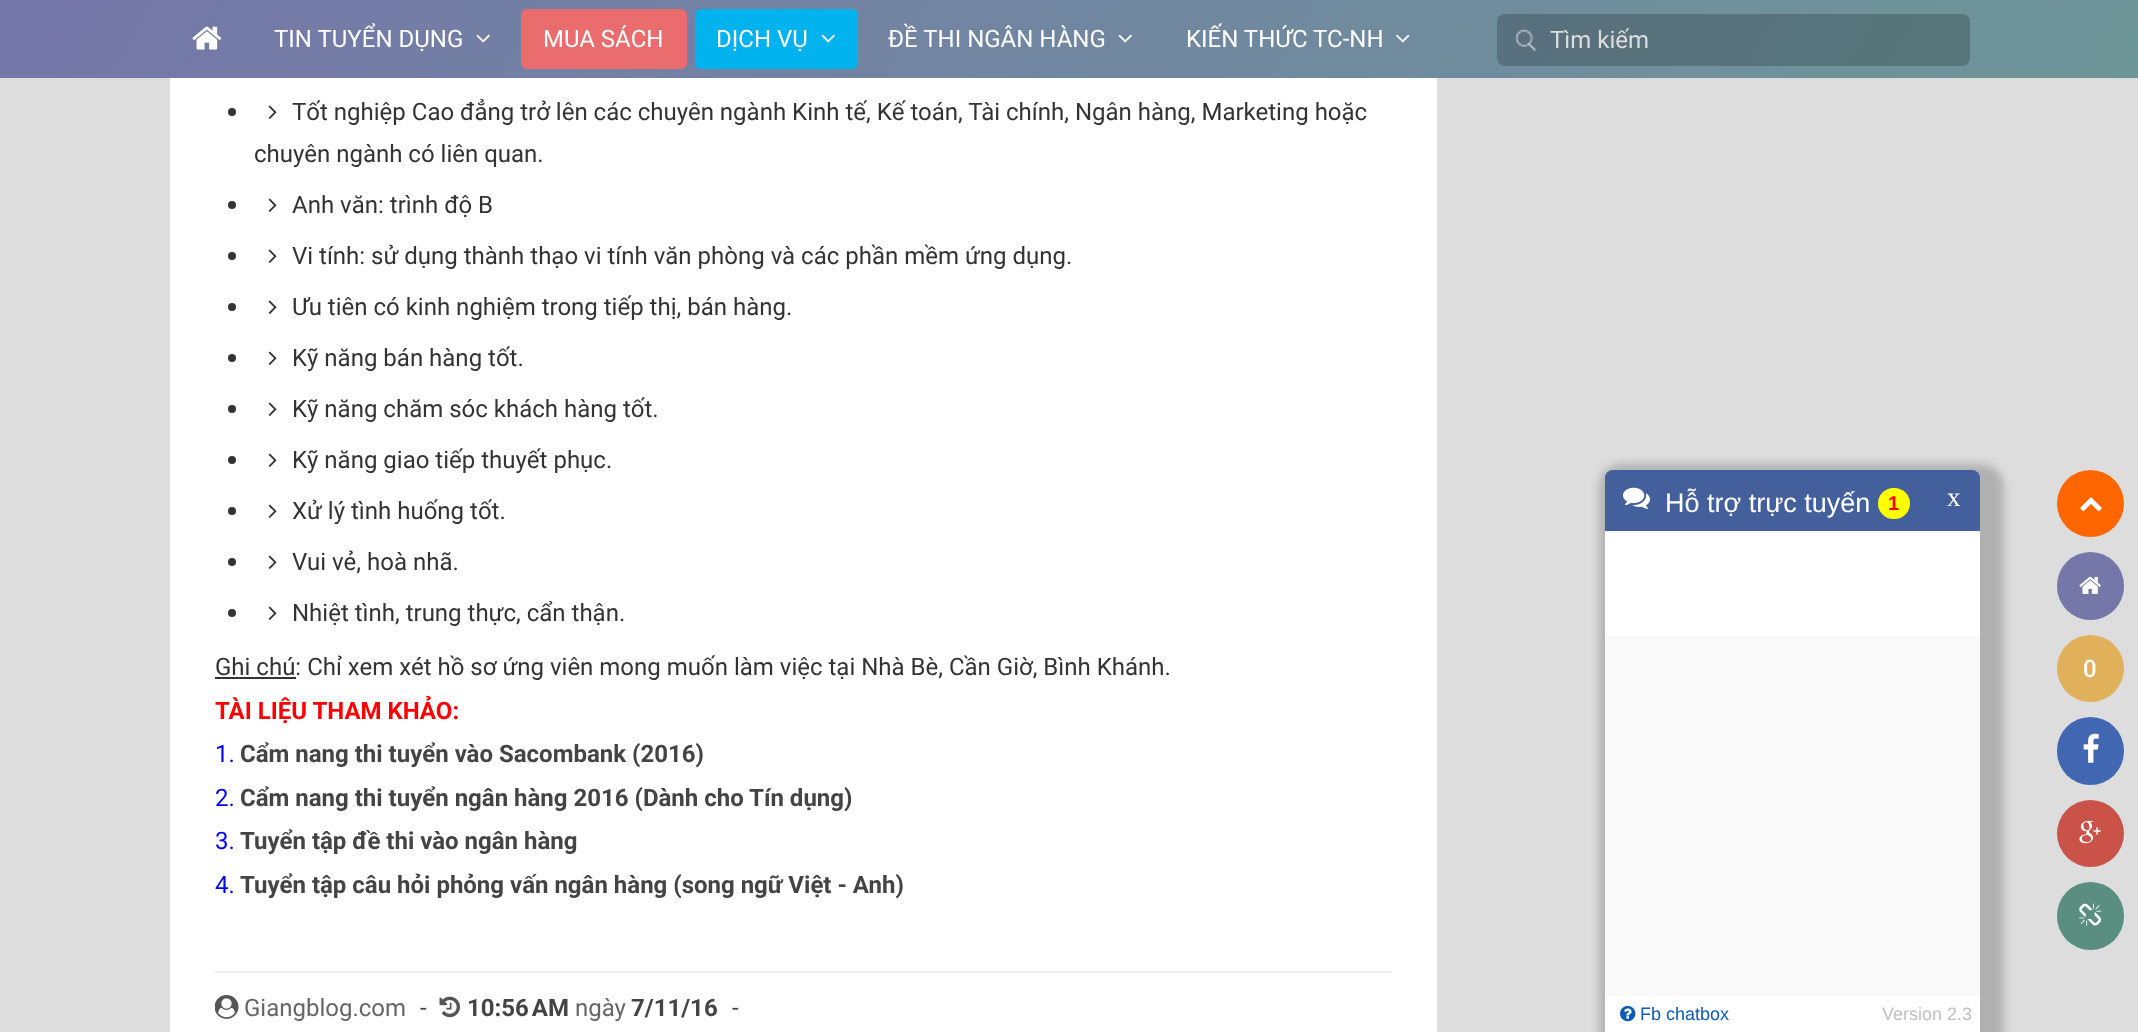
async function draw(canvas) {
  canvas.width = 2138
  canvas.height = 1032
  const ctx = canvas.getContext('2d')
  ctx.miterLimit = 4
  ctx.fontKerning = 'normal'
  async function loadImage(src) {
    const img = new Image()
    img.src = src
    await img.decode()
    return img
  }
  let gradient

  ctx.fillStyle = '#ddd'
  ctx.fillRect(0, 0, 2138, 1032)
  gradient = ctx.createLinearGradient(250, -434, 1889, 512)
  gradient.addColorStop(0, '#7577a9')
  gradient.addColorStop(1, '#6d9698')
  ctx.fillStyle = gradient
  ctx.fillRect(0, 0, 2138, 78)
  ctx.drawImage(await loadImage('image0.png'), 192, 26, 30, 24)
  ctx.font = '24px Roboto'
  ctx.fillStyle = '#fff'
  ctx.fillText('TIN TUYỂN DỤNG', 274, 47)
  ctx.drawImage(await loadImage('image1.png'), 476, 34, 14, 9)
  ctx.fillStyle = '#ea6c6c'
  ctx.beginPath()
  ctx.roundRect(521, 9, 166, 60, 6)
  ctx.fill()
  ctx.fillStyle = '#fff'
  ctx.fillText('MUA SÁCH', 543, 47)
  ctx.fillStyle = '#00b2ee'
  ctx.beginPath()
  ctx.roundRect(695, 9, 163, 60, 6)
  ctx.fill()
  ctx.fillStyle = '#fff'
  ctx.fillText('DỊCH VỤ', 716, 47)
  ctx.drawImage(await loadImage('image2.png'), 821, 34, 14, 9)
  ctx.fillText('ĐỀ THI NGÂN HÀNG', 888, 47)
  ctx.drawImage(await loadImage('image3.png'), 1118, 34, 14, 9)
  ctx.fillText('KIẾN THỨC TC-NH', 1186, 47)
  ctx.drawImage(await loadImage('image4.png'), 1396, 34, 14, 9)
  ctx.fillStyle = '#00000033'
  ctx.beginPath()
  ctx.roundRect(1497, 14, 473, 52, 8)
  ctx.fill()
  ctx.drawImage(await loadImage('image5.png'), 1514, 29, 23, 23)
  ctx.fillStyle = '#ddd'
  ctx.fillText('Tìm kiếm', 1550, 48)
  ctx.fillStyle = '#fff'
  ctx.fillRect(170, 78, 1267, 954)
  ctx.fillStyle = '#333'
  ctx.beginPath()
  ctx.arc(232, 112, 4, 0, 2 * Math.PI)
  ctx.fill()
  ctx.drawImage(await loadImage('image6.png'), 268, 105, 9, 14)
  ctx.fillText('Tốt nghiệp Cao đẳng trở lên các chuyên ngành Kinh tế, Kế toán, Tài chính, Ngân hàng, Marketing hoặc', 292, 120)
  ctx.fillText('chuyên ngành có liên quan.', 254, 162)
  ctx.beginPath()
  ctx.arc(232, 205, 4, 0, 2 * Math.PI)
  ctx.fill()
  ctx.drawImage(await loadImage('image6.png'), 268, 198, 9, 14)
  ctx.fillText('Anh văn: trình độ B', 292, 213)
  ctx.beginPath()
  ctx.arc(232, 256, 4, 0, 2 * Math.PI)
  ctx.fill()
  ctx.drawImage(await loadImage('image6.png'), 268, 249, 9, 14)
  ctx.fillText('Vi tính: sử dụng thành thạo vi tính văn phòng và các phần mềm ứng dụng.', 292, 264)
  ctx.beginPath()
  ctx.arc(232, 307, 4, 0, 2 * Math.PI)
  ctx.fill()
  ctx.drawImage(await loadImage('image6.png'), 268, 300, 9, 14)
  ctx.fillText('Ưu tiên có kinh nghiệm trong tiếp thị, bán hàng.', 292, 315)
  ctx.beginPath()
  ctx.arc(232, 358, 4, 0, 2 * Math.PI)
  ctx.fill()
  ctx.drawImage(await loadImage('image6.png'), 268, 351, 9, 14)
  ctx.fillText('Kỹ năng bán hàng tốt.', 292, 366)
  ctx.beginPath()
  ctx.arc(232, 409, 4, 0, 2 * Math.PI)
  ctx.fill()
  ctx.drawImage(await loadImage('image6.png'), 268, 402, 9, 14)
  ctx.fillText('Kỹ năng chăm sóc khách hàng tốt.', 292, 417)
  ctx.beginPath()
  ctx.arc(232, 460, 4, 0, 2 * Math.PI)
  ctx.fill()
  ctx.drawImage(await loadImage('image6.png'), 268, 453, 9, 14)
  ctx.fillText('Kỹ năng giao tiếp thuyết phục.', 292, 468)
  ctx.beginPath()
  ctx.arc(232, 511, 4, 0, 2 * Math.PI)
  ctx.fill()
  ctx.drawImage(await loadImage('image6.png'), 268, 504, 9, 14)
  ctx.fillText('Xử lý tình huống tốt.', 292, 519)
  ctx.beginPath()
  ctx.arc(232, 562, 4, 0, 2 * Math.PI)
  ctx.fill()
  ctx.drawImage(await loadImage('image6.png'), 268, 555, 9, 14)
  ctx.fillText('Vui vẻ, hoà nhã.', 292, 570)
  ctx.beginPath()
  ctx.arc(232, 613, 4, 0, 2 * Math.PI)
  ctx.fill()
  ctx.drawImage(await loadImage('image6.png'), 268, 606, 9, 14)
  ctx.fillText('Nhiệt tình, trung thực, cẩn thận.', 292, 621)
  ctx.fillRect(215, 677, 81, 2)
  ctx.fillText('Ghi chú: Chỉ xem xét hồ sơ ứng viên mong muốn làm việc tại Nhà Bè, Cần Giờ, Bình Khánh.', 215, 675)
  ctx.font = 'bold 24px Roboto'
  ctx.fillStyle = '#f00'
  ctx.fillText('TÀI LIỆU THAM KHẢO:', 215, 719)
  ctx.font = '24px Roboto'
  ctx.fillStyle = '#00f'
  ctx.fillText('1.', 215, 762)
  ctx.font = 'bold 24px Roboto'
  ctx.fillStyle = '#444'
  ctx.fillText('Cẩm nang thi tuyển vào Sacombank (2016)', 240, 762)
  ctx.font = '24px Roboto'
  ctx.fillStyle = '#00f'
  ctx.fillText('2.', 215, 806)
  ctx.font = 'bold 24px Roboto'
  ctx.fillStyle = '#444'
  ctx.fillText('Cẩm nang thi tuyển ngân hàng 2016 (Dành cho Tín dụng)', 240, 806)
  ctx.font = '24px Roboto'
  ctx.fillStyle = '#00f'
  ctx.fillText('3.', 215, 849)
  ctx.font = 'bold 24px Roboto'
  ctx.fillStyle = '#444'
  ctx.fillText('Tuyển tập đề thi vào ngân hàng', 240, 849)
  ctx.font = '24px Roboto'
  ctx.fillStyle = '#00f'
  ctx.fillText('4.', 215, 893)
  ctx.font = 'bold 24px Roboto'
  ctx.fillStyle = '#444'
  ctx.fillText('Tuyển tập câu hỏi phỏng vấn ngân hàng (song ngữ Việt - Anh)', 240, 893)
  ctx.fillStyle = '#eee'
  ctx.fillRect(215, 971, 1177, 2)
  ctx.drawImage(await loadImage('image7.png'), 215, 994, 24, 25)
  ctx.font = '24px Roboto'
  ctx.fillStyle = '#666'
  ctx.fillText('Giangblog.com', 244, 1016)
  ctx.fillStyle = '#444'
  ctx.fillText('-', 420, 1016)
  ctx.drawImage(await loadImage('image8.png'), 439, 996, 22, 22)
  ctx.font = 'bold 24px Roboto'
  ctx.fillText('10:56 AM', 467, 1016)
  ctx.font = '24px Roboto'
  ctx.fillStyle = '#666'
  ctx.fillText('ngày', 575, 1016)
  ctx.font = 'bold 24px Roboto'
  ctx.fillStyle = '#444'
  ctx.fillText('7/11/16', 631, 1016)
  ctx.font = '24px Roboto'
  ctx.fillText('-', 732, 1016)
  ctx.fillStyle = '#7577a9'
  ctx.beginPath()
  ctx.roundRect(2057, 552, 67, 68, 33.5)
  ctx.fill()
  ctx.drawImage(await loadImage('image9.png'), 2079, 576, 22, 18)
  ctx.fillStyle = '#e0b15a'
  ctx.beginPath()
  ctx.arc(2090.5, 668.5, 33.5, 0, 2 * Math.PI)
  ctx.fill()
  ctx.font = '500 24px Roboto'
  ctx.fillStyle = '#fff'
  ctx.fillText('0', 2083, 677)
  ctx.fillStyle = '#4267b2'
  ctx.beginPath()
  ctx.roundRect(2057, 717, 67, 68, 33.5)
  ctx.fill()
  ctx.drawImage(await loadImage('image10.png'), 2083, 733, 16, 30)
  ctx.fillStyle = '#ca5248'
  ctx.beginPath()
  ctx.arc(2090.5, 833.5, 33.5, 0, 2 * Math.PI)
  ctx.fill()
  ctx.drawImage(await loadImage('image11.png'), 2079, 820, 22, 24)
  ctx.fillStyle = '#598e80'
  ctx.beginPath()
  ctx.roundRect(2057, 882, 67, 68, 33.5)
  ctx.fill()
  ctx.drawImage(await loadImage('image12.png'), 2079, 903, 23, 23)
  ctx.fillStyle = '#f60'
  ctx.beginPath()
  ctx.arc(2090.5, 503.5, 33.5, 0, 2 * Math.PI)
  ctx.fill()
  ctx.drawImage(await loadImage('image13.png'), 2080, 497, 22, 15)
  ctx.fillStyle = '#00000033'
  ctx.filter = 'blur(4.5px)'
  ctx.beginPath()
  ctx.roundRect(1599, 464, 405, 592, 23)
  ctx.fill()
  ctx.filter = 'none'
  ctx.fillStyle = '#43609c'
  ctx.beginPath()
  ctx.roundRect(1605, 470, 375, 61, [8, 8, 0, 0])
  ctx.fill()
  ctx.drawImage(await loadImage('image14.png'), 1623, 487, 27, 22)
  ctx.font = '27px Liberation Sans'
  ctx.fillStyle = '#fff'
  ctx.fillText('Hỗ trợ trực tuyến', 1665, 512)
  ctx.fillStyle = '#ff0'
  ctx.beginPath()
  ctx.roundRect(1878, 488, 32, 31, 15.5)
  ctx.fill()
  ctx.font = 'bold 20px Liberation Sans'
  ctx.fillStyle = '#f00'
  ctx.fillText('1', 1888, 510)
  ctx.font = '27px Liberation Serif'
  ctx.fillStyle = '#fff'
  ctx.fillText('x', 1947, 506)
  ctx.fillRect(1605, 531, 375, 105)
  ctx.fillStyle = '#f9f9f9'
  ctx.fillRect(1605, 636, 375, 360)
  ctx.fillStyle = '#fff'
  ctx.fillRect(1605, 996, 375, 36)
  ctx.drawImage(await loadImage('image15.png'), 1620, 1005, 16, 17)
  ctx.font = '18px Liberation Sans'
  ctx.fillStyle = '#0c5bb5'
  ctx.fillText('Fb chatbox', 1640, 1020)
  ctx.fillStyle = '#c0c0c0'
  ctx.fillText('Version 2.3', 1882, 1020)
}

draw(document.querySelector('canvas'))
